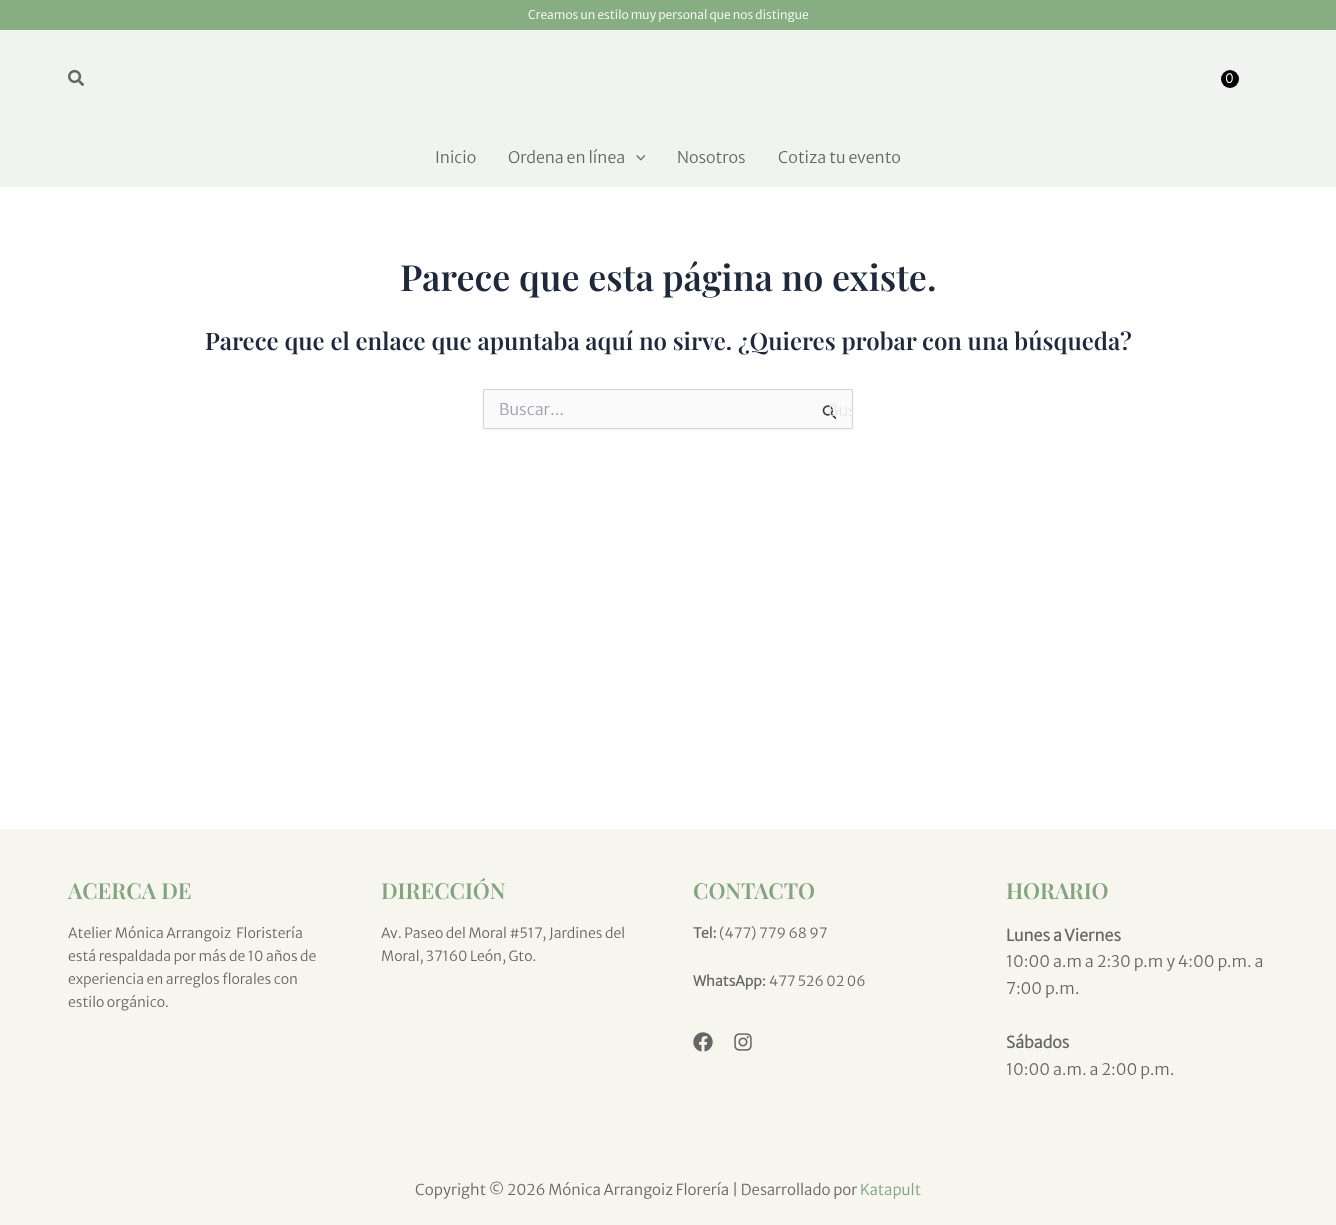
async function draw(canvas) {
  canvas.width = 1336
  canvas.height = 1225
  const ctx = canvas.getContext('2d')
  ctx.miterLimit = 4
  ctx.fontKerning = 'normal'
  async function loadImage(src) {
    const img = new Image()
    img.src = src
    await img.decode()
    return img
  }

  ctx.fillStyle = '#fff'
  ctx.fillRect(0, 0, 1336, 1225)
  ctx.fillStyle = '#87ae83'
  ctx.fillRect(0, 0, 1336, 30)
  ctx.font = '300 12px Merriweather Sans'
  ctx.fillStyle = '#fff'
  ctx.fillText('Creamos un estilo muy personal que nos distingue', 528, 19)
  ctx.fillStyle = '#f1f3f1'
  ctx.fillRect(0, 30, 1336, 157)
  ctx.drawImage(await loadImage('image0.png'), 68, 69, 16, 17)
  ctx.fillStyle = '#000'
  ctx.beginPath()
  ctx.arc(1230, 79, 9, 0, 2 * Math.PI)
  ctx.fill()
  ctx.font = '300 13px Merriweather Sans'
  ctx.fillStyle = '#fff'
  ctx.fillText('0', 1225, 83)
  ctx.font = '300 16px Merriweather Sans'
  ctx.fillStyle = '#666'
  ctx.fillText('Inicio', 435, 163)
  ctx.fillText('Ordena en línea', 508, 163)
  ctx.drawImage(await loadImage('image1.png'), 636, 155, 9, 6)
  ctx.fillText('Nosotros', 677, 163)
  ctx.fillText('Cotiza tu evento', 778, 163)
  ctx.font = '600 36px Playfair Display'
  ctx.fillStyle = '#1e293b'
  ctx.fillText('Parece que esta página no existe.', 400, 291)
  ctx.font = '600 24px Playfair Display'
  ctx.fillText('Parece que el enlace que apuntaba aquí no sirve. ¿Quieres probar con una búsqueda?', 205, 350)
  ctx.fillStyle = '#0000000d'
  ctx.filter = 'blur(1px)'
  ctx.beginPath()
  ctx.roundRect(483, 390, 370, 40, 2)
  ctx.fill()
  ctx.filter = 'none'
  ctx.fillStyle = '#fafafa'
  ctx.beginPath()
  ctx.roundRect(483.5, 389.5, 369, 39, 1.5)
  ctx.fill()
  ctx.strokeStyle = '#d1d5db'
  ctx.stroke()
  ctx.font = '300 16px Merriweather Sans'
  ctx.fillStyle = '#9ca3af'
  ctx.fillText('Buscar...', 499, 415)
  ctx.drawImage(await loadImage('image2.png'), 822, 405, 14, 15)
  ctx.save()
  ctx.beginPath()
  ctx.roundRect(808, 389, 45, 42, 2)
  ctx.clip()
  ctx.fillStyle = '#e6e6e6'
  ctx.fillText('Bus', 828, 416)
  ctx.restore()
  ctx.fillStyle = '#f6f6ee'
  ctx.fillRect(0, 829, 1336, 396)
  ctx.font = '600 22px Playfair Display'
  ctx.fillStyle = '#84a47f'
  ctx.fillText('ACERCA DE', 68, 899)
  ctx.font = '300 14px Merriweather Sans'
  ctx.fillStyle = '#666'
  ctx.fillText('Atelier Mónica Arrangoiz  Floristería', 68, 938)
  ctx.fillText('está respaldada por más de 10 años de', 68, 961)
  ctx.fillText('experiencia en arreglos florales con', 68, 984)
  ctx.fillText('estilo orgánico.', 68, 1007)
  ctx.font = '600 22px Playfair Display'
  ctx.fillStyle = '#84a47f'
  ctx.fillText('DIRECCIÓN', 381, 899)
  ctx.font = '300 14px Merriweather Sans'
  ctx.fillStyle = '#666'
  ctx.fillText('Av. Paseo del Moral #517, Jardines del', 381, 938)
  ctx.fillText('Moral, 37160 León, Gto.', 381, 961)
  ctx.font = '600 22px Playfair Display'
  ctx.fillStyle = '#84a47f'
  ctx.fillText('CONTACTO', 693, 899)
  ctx.font = 'bold 14px Merriweather Sans'
  ctx.fillStyle = '#666'
  ctx.fillText('Tel:', 693, 938)
  ctx.font = '300 14px Merriweather Sans'
  ctx.fillText('(477) 779 68 97', 719, 938)
  ctx.font = 'bold 14px Merriweather Sans'
  ctx.fillText('WhatsApp:', 693, 986)
  ctx.font = '300 14px Merriweather Sans'
  ctx.fillText('477 526 02 06', 769, 986)
  ctx.drawImage(await loadImage('image3.png'), 693, 1032, 20, 20)
  ctx.drawImage(await loadImage('image4.png'), 734, 1033, 18, 18)
  ctx.font = '600 22px Playfair Display'
  ctx.fillStyle = '#84a47f'
  ctx.fillText('HORARIO', 1006, 899)
  ctx.font = 'bold 16px Merriweather Sans'
  ctx.fillStyle = '#666'
  ctx.fillText('Lunes a Viernes', 1006, 941)
  ctx.font = '300 16px Merriweather Sans'
  ctx.fillText('10:00 a.m a 2:30 p.m y 4:00 p.m. a', 1006, 967)
  ctx.fillText('7:00 p.m.', 1006, 994)
  ctx.font = 'bold 16px Merriweather Sans'
  ctx.fillText('Sábados', 1006, 1048)
  ctx.font = '300 16px Merriweather Sans'
  ctx.fillText('10:00 a.m. a 2:00 p.m.', 1006, 1075)
  ctx.font = '300 15px Merriweather Sans'
  ctx.fillText('Copyright © 2026 Mónica Arrangoiz Florería | Desarrollado por', 415, 1195)
  ctx.fillStyle = '#84a47f'
  ctx.fillText('Katapult', 860, 1195)
}

draw(document.querySelector('canvas'))
